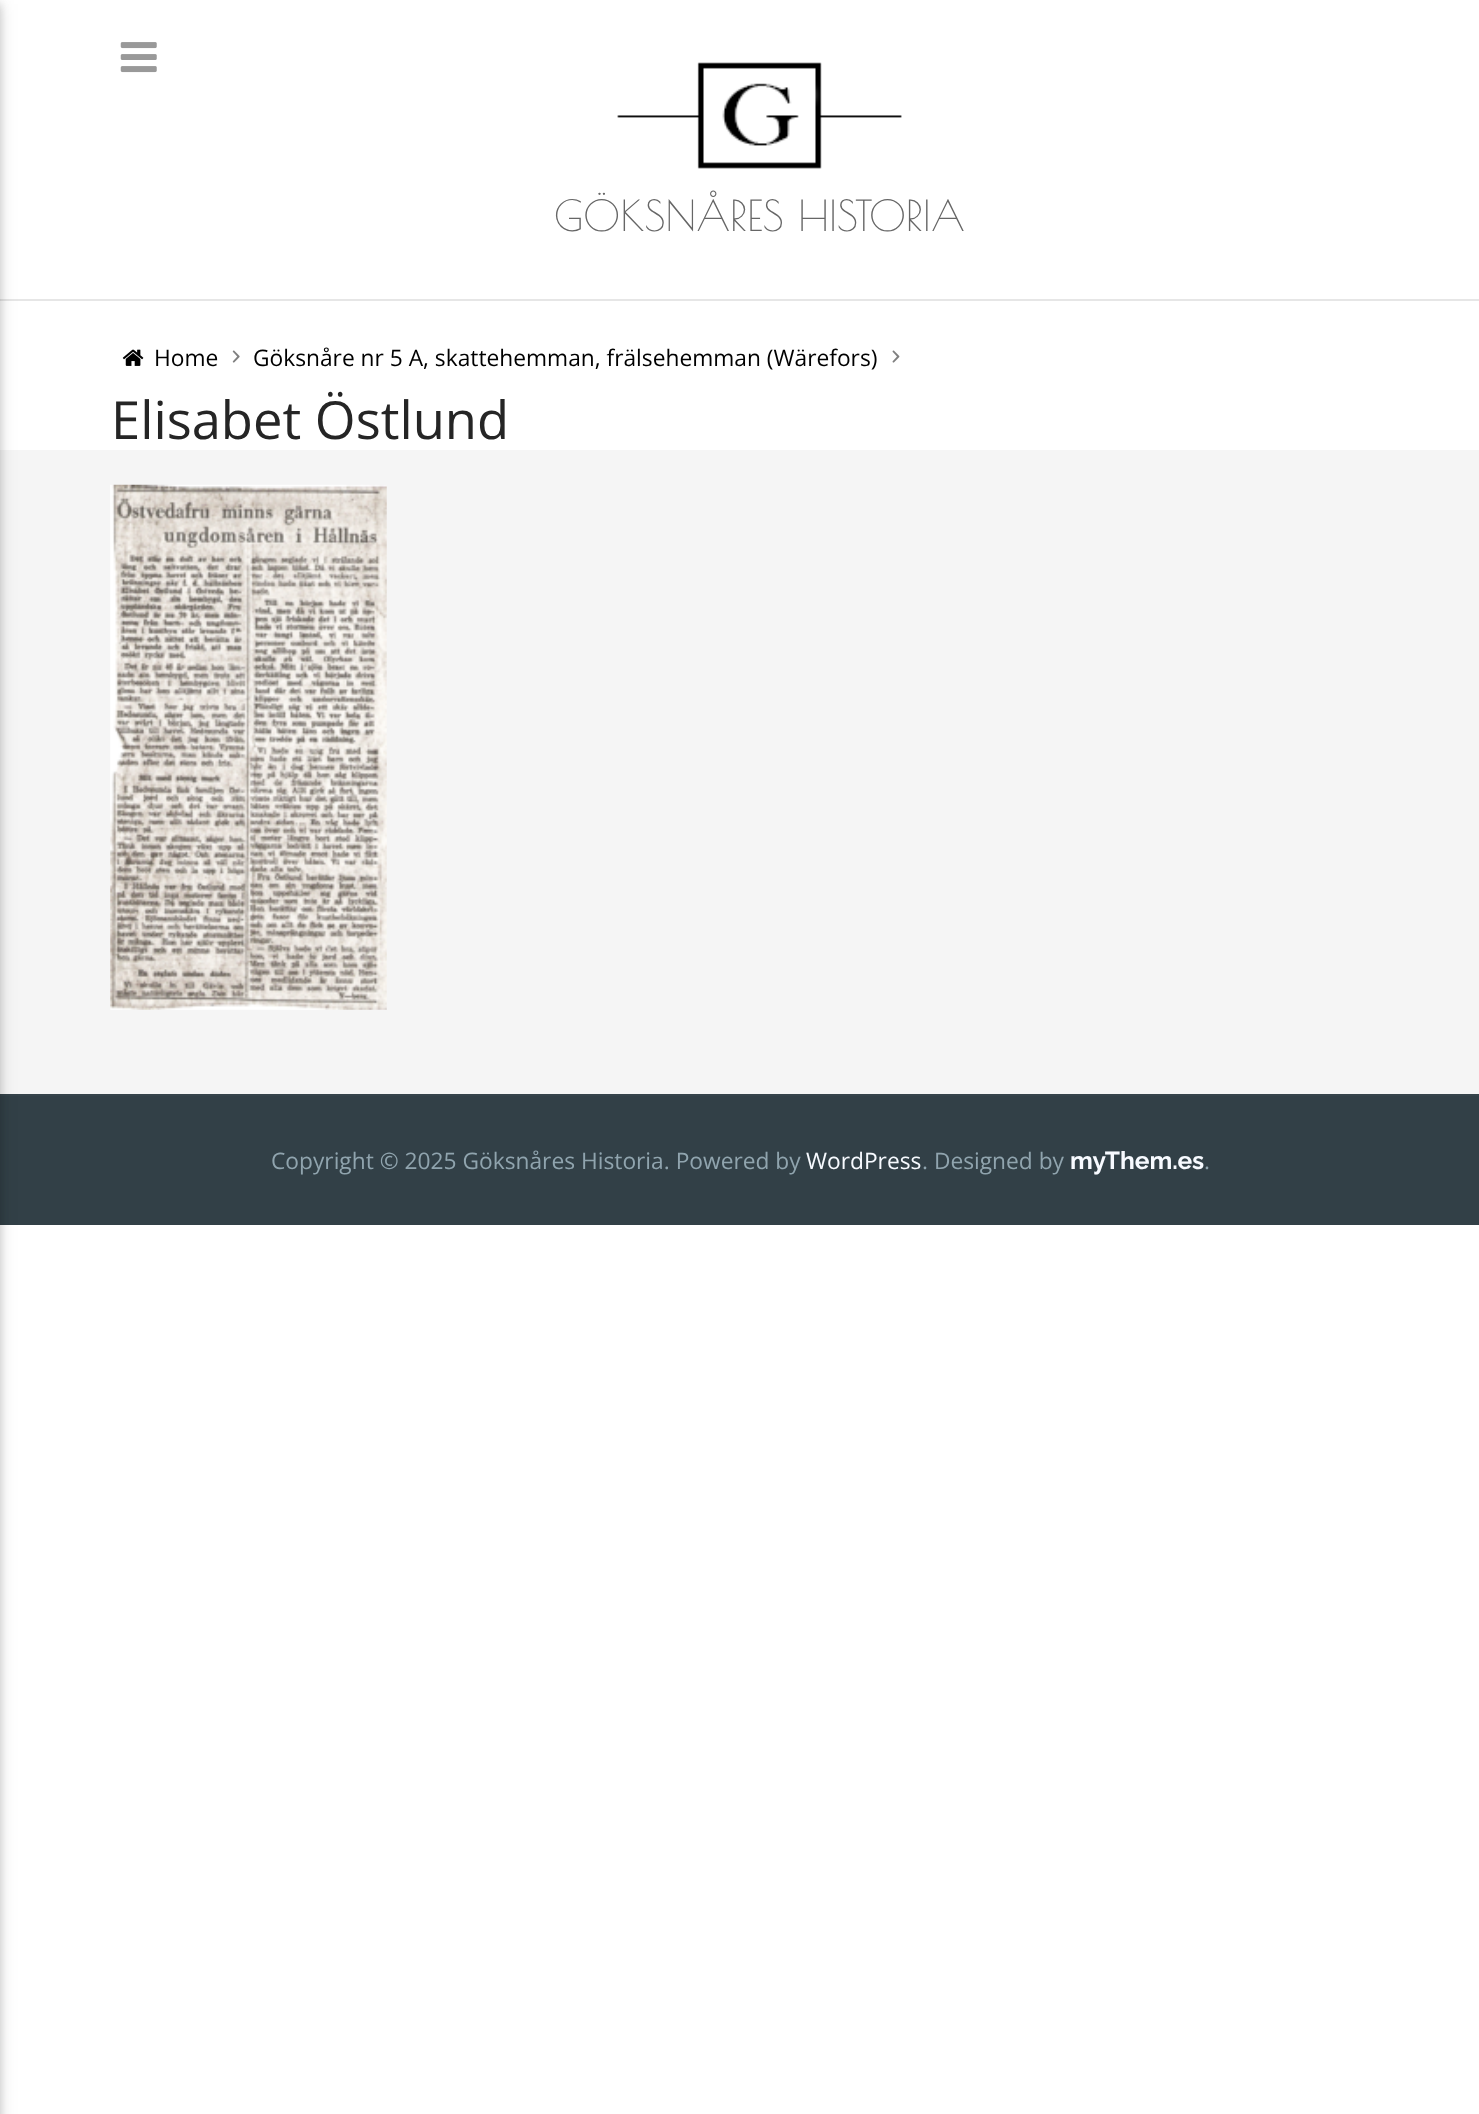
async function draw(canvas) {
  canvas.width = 1479
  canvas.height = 2114
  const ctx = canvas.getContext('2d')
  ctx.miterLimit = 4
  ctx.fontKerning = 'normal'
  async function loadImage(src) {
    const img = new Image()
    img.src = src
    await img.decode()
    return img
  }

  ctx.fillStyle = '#fff'
  ctx.fillRect(0, 0, 1479, 2114)
  ctx.fillStyle = '#e6e6e6'
  ctx.fillRect(0, 299, 1479, 2)
  ctx.fillStyle = '#f5f5f5'
  ctx.fillRect(0, 450, 1479, 644)
  ctx.fillStyle = '#324047'
  ctx.fillRect(0, 1096, 1479, 129)
  ctx.fillStyle = '#36444b'
  ctx.fillRect(0, 1094, 1479, 2)
  ctx.fillStyle = '#0000001f'
  ctx.filter = 'blur(9px)'
  ctx.beginPath()
  ctx.rect(-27, 4, 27, 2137)
  ctx.fill()
  ctx.filter = 'none'
  ctx.fillStyle = '#00000029'
  ctx.filter = 'blur(4.5px)'
  ctx.beginPath()
  ctx.rect(-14, 4, 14, 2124)
  ctx.fill()
  ctx.filter = 'none'
  ctx.drawImage(await loadImage('image0.png'), 120, 42, 37, 31)
  ctx.drawImage(await loadImage('image1.png'), 617, 62, 285, 107)
  ctx.font = '42px Poiret One'
  ctx.fillStyle = '#666'
  ctx.fillText('GÖKSNÅRES HISTORIA', 554, 231)
  ctx.drawImage(await loadImage('image2.png'), 122, 349, 22, 17)
  ctx.font = '22.75px Open Sans'
  ctx.fillStyle = '#000'
  ctx.fillText('Home', 154, 366)
  ctx.drawImage(await loadImage('image3.png'), 232, 350, 8, 13)
  ctx.fillText('Göksnåre nr 5 A, skattehemman, frälsehemman (Wärefors)', 253, 366)
  ctx.drawImage(await loadImage('image4.png'), 892, 350, 8, 13)
  ctx.font = '52.5px Open Sans'
  ctx.fillStyle = '#252525'
  ctx.fillText('Elisabet Östlund', 111, 439)
  ctx.drawImage(await loadImage('image5.png'), 110, 484, 277, 526)
  ctx.font = '22.75px Open Sans'
  ctx.fillStyle = '#90a4ae'
  ctx.fillText('Copyright © 2025 Göksnåres Historia. Powered by', 271, 1169)
  ctx.fillStyle = '#f7faff'
  ctx.fillText('WordPress', 806, 1169)
  ctx.fillStyle = '#90a4ae'
  ctx.fillText('. Designed by', 922, 1169)
  ctx.font = 'bold 24.5px Raleway'
  ctx.fillStyle = '#f7faff'
  ctx.fillText('myThem.es', 1070, 1169)
  ctx.font = '22.75px Open Sans'
  ctx.fillStyle = '#90a4ae'
  ctx.fillText('.', 1204, 1169)
}

draw(document.querySelector('canvas'))
